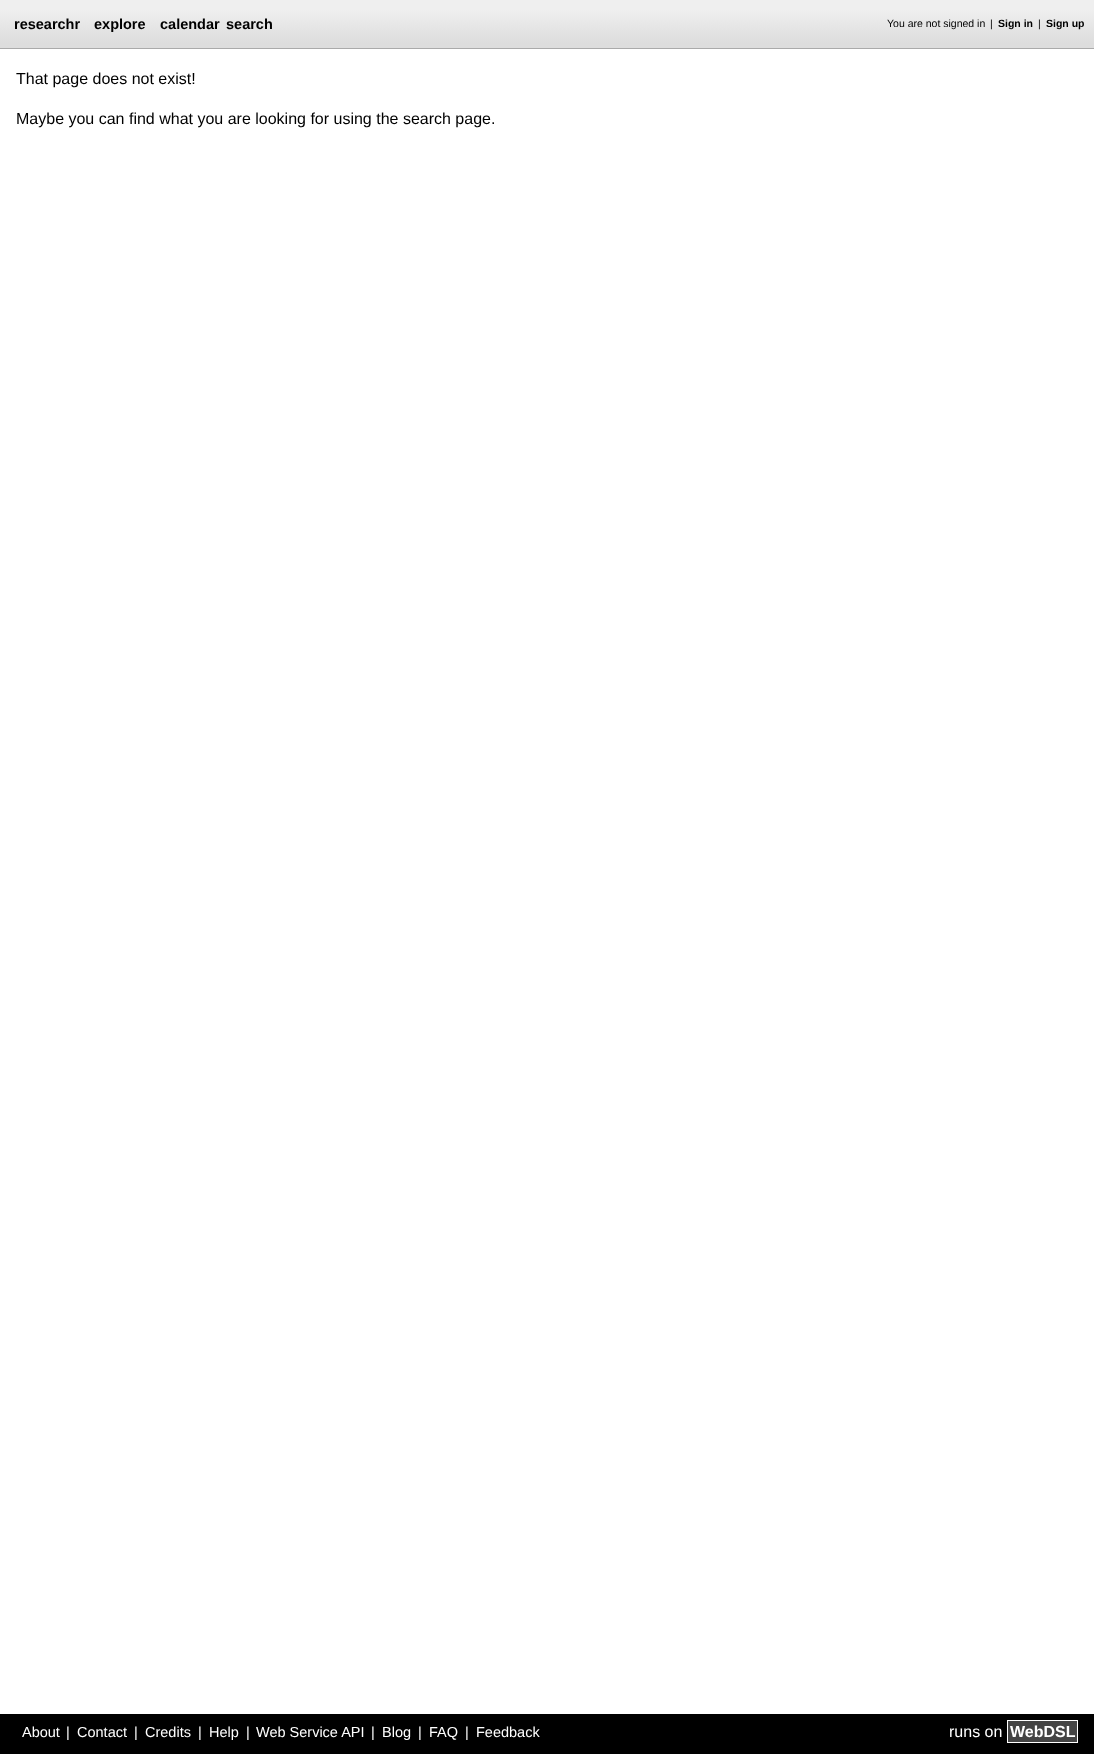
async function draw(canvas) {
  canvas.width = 1094
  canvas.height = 1754
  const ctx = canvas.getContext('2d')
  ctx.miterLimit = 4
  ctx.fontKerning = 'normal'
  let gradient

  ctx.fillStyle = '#fff'
  ctx.fillRect(0, 0, 1094, 1754)
  gradient = ctx.createLinearGradient(0, 48, 0, 0)
  gradient.addColorStop(0.1, '#ddd')
  gradient.addColorStop(0.8, '#efefef')
  ctx.fillStyle = gradient
  ctx.fillRect(0, 0, 1094, 48)
  ctx.fillStyle = '#aaa'
  ctx.fillRect(0, 48, 1094, 1)
  ctx.font = 'bold 14.5px Liberation Sans'
  ctx.fillStyle = '#000'
  ctx.fillText('researchr', 14, 29)
  ctx.fillText('explore', 94, 29)
  ctx.fillText('calendar', 160, 29)
  ctx.fillText('search', 226, 29)
  ctx.font = '10.5px Liberation Sans'
  ctx.fillText('You are not signed in', 887, 27)
  ctx.fillText('|', 990, 27)
  ctx.font = 'bold 10.5px Liberation Sans'
  ctx.fillText('Sign in', 998, 27)
  ctx.font = '10.5px Liberation Sans'
  ctx.fillText('|', 1038, 27)
  ctx.font = 'bold 10.5px Liberation Sans'
  ctx.fillText('Sign up', 1046, 27)
  ctx.font = '16px Liberation Sans'
  ctx.fillText('That page does not exist!', 16, 84)
  ctx.fillText('Maybe you can find what you are looking for using the search page.', 16, 124)
  ctx.fillRect(0, 1714, 1094, 40)
  ctx.font = '14.5px Liberation Sans'
  ctx.fillStyle = '#fff'
  ctx.fillText('About', 22, 1737)
  ctx.fillText('|', 66, 1737)
  ctx.fillText('Contact', 77, 1737)
  ctx.fillText('|', 134, 1737)
  ctx.fillText('Credits', 145, 1737)
  ctx.fillText('|', 198, 1737)
  ctx.fillText('Help', 209, 1737)
  ctx.fillText('|', 246, 1737)
  ctx.fillText('Web Service API', 256, 1737)
  ctx.fillText('|', 371, 1737)
  ctx.fillText('Blog', 382, 1737)
  ctx.fillText('|', 418, 1737)
  ctx.fillText('FAQ', 429, 1737)
  ctx.fillText('|', 465, 1737)
  ctx.fillText('Feedback', 476, 1737)
  ctx.font = '16px Liberation Sans'
  ctx.fillText('runs on', 949, 1737)
  ctx.fillStyle = '#444'
  ctx.fillRect(1008, 1721, 69, 21)
  ctx.font = 'bold 16px Liberation Sans'
  ctx.fillStyle = '#fff'
  ctx.fillText('WebDSL', 1010, 1737)
  ctx.fillRect(1007, 1720, 71, 1)
  ctx.fillRect(1007, 1742, 36, 1)
  ctx.fillRect(1007, 1720, 1, 23)
  ctx.fillRect(1077, 1720, 1, 23)
  ctx.fillRect(1043, 1742, 35, 1)
}

draw(document.querySelector('canvas'))
